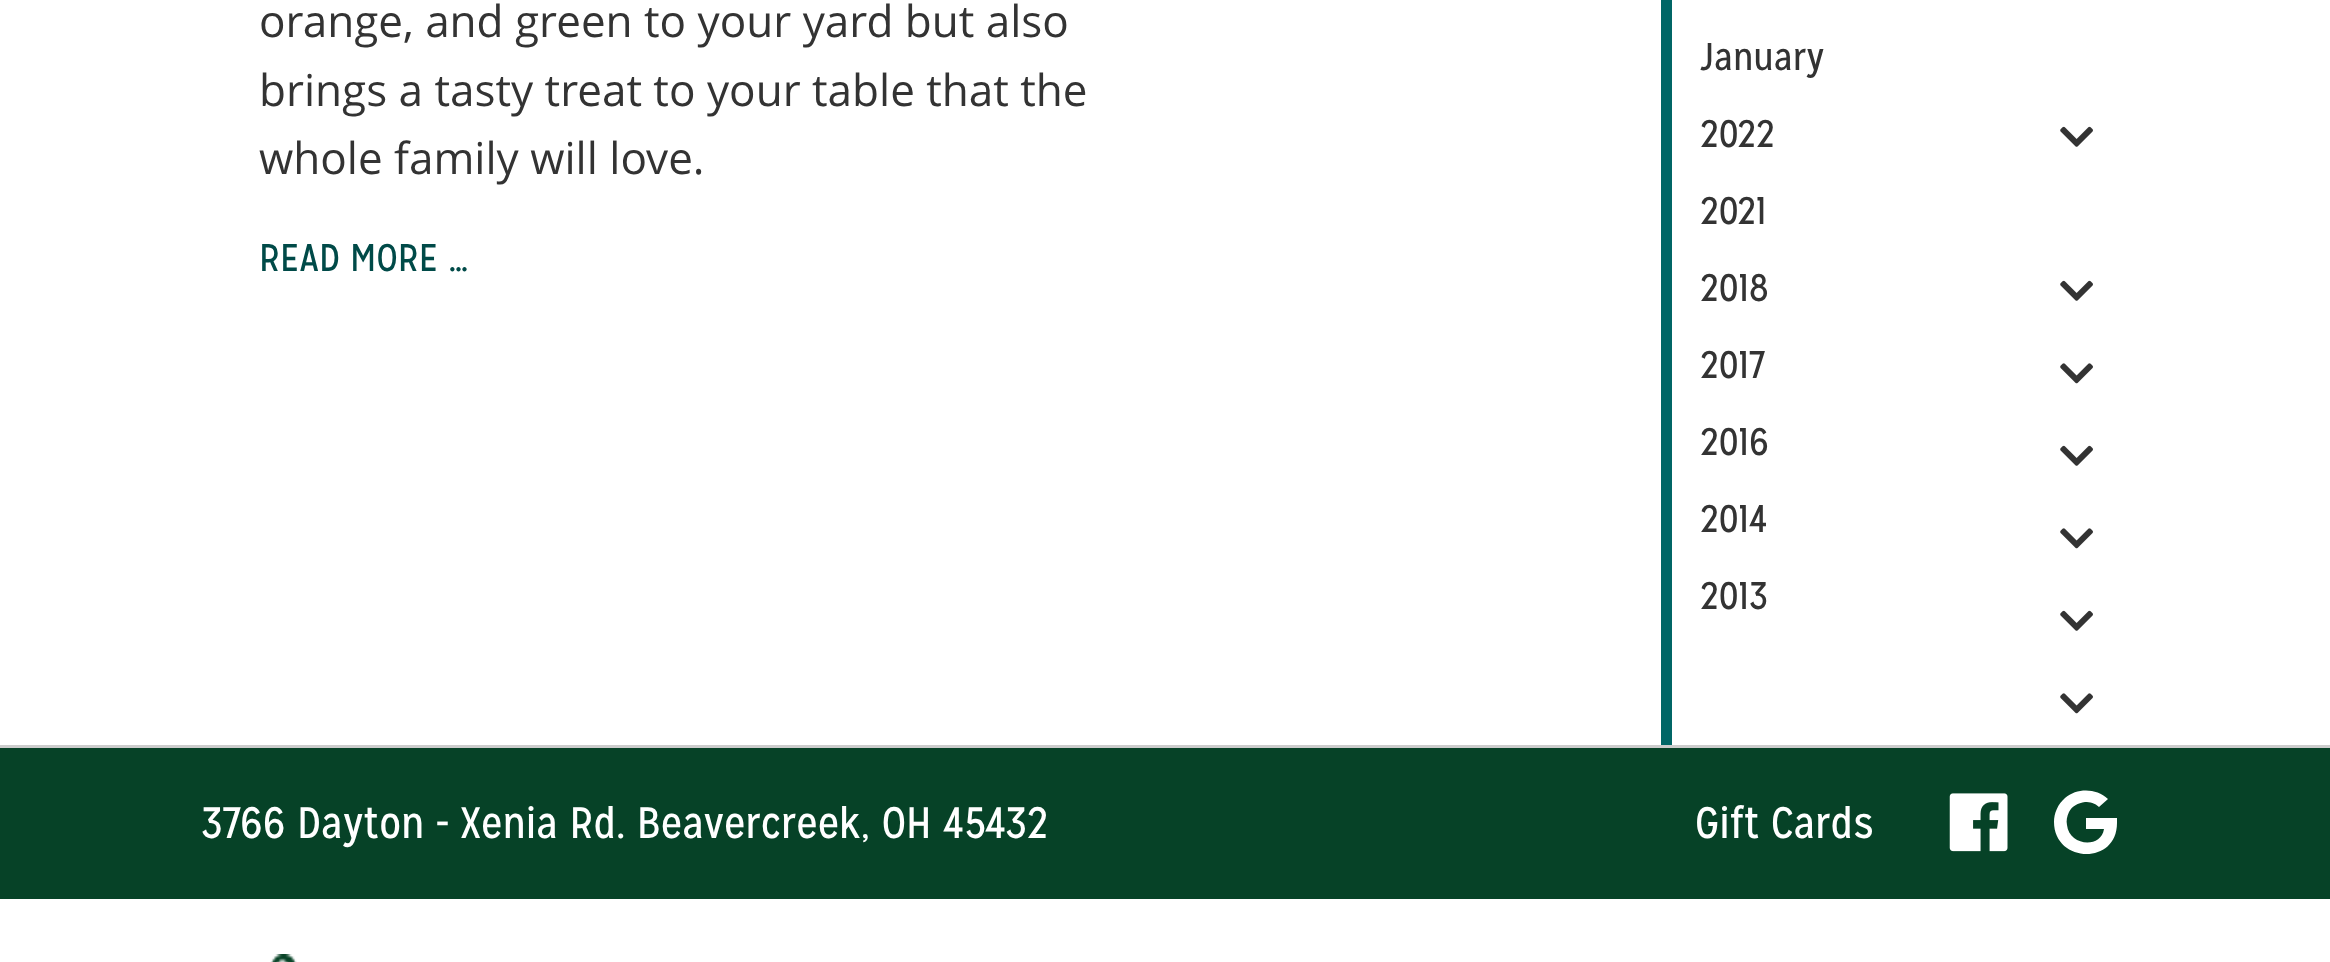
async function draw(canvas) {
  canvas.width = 2330
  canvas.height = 962
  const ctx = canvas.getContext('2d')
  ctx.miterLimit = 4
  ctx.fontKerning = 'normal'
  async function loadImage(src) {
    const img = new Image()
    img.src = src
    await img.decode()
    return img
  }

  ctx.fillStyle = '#fff'
  ctx.fillRect(0, 0, 2330, 962)
  ctx.font = '44px Open Sans'
  ctx.fillStyle = '#333'
  ctx.fillText('orange, and green to your yard but also', 259, 37)
  ctx.fillText('brings a tasty treat to your table that the', 259, 106)
  ctx.fillText('whole family will love.', 259, 174)
  ctx.font = '38.5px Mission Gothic'
  ctx.fillStyle = '#004a48'
  ctx.fillText('READ MORE …', 259, 271)
  ctx.fillStyle = '#066'
  ctx.fillRect(1661, 0, 11, 745)
  ctx.fillStyle = '#333'
  ctx.fillText('January', 1700, 70)
  ctx.fillText('2022', 1700, 147)
  ctx.drawImage(await loadImage('image0.png'), 2060, 126, 33, 21)
  ctx.fillText('2021', 1700, 224)
  ctx.drawImage(await loadImage('image0.png'), 2060, 280, 33, 21)
  ctx.fillText('2018', 1700, 301)
  ctx.drawImage(await loadImage('image1.png'), 2060, 363, 33, 21)
  ctx.fillText('2017', 1700, 378)
  ctx.drawImage(await loadImage('image0.png'), 2060, 445, 33, 21)
  ctx.fillText('2016', 1700, 455)
  ctx.drawImage(await loadImage('image1.png'), 2060, 528, 33, 21)
  ctx.fillText('2014', 1700, 532)
  ctx.drawImage(await loadImage('image0.png'), 2060, 610, 33, 21)
  ctx.fillText('2013', 1700, 609)
  ctx.drawImage(await loadImage('image1.png'), 2060, 693, 33, 21)
  ctx.fillStyle = '#ccc'
  ctx.fillRect(0, 745, 2330, 3)
  ctx.fillStyle = '#064227'
  ctx.fillRect(0, 748, 2330, 151)
  ctx.font = '44px Mission Gothic'
  ctx.fillStyle = '#fff'
  ctx.fillText('3766 Dayton - Xenia Rd. Beavercreek, OH 45432', 201, 838)
  ctx.fillText('Gift Cards', 1695, 838)
  ctx.drawImage(await loadImage('image2.png'), 1949, 793, 59, 59)
  ctx.beginPath()
  ctx.moveTo(2117, 823)
  ctx.bezierCurveTo(2117, 866, 2054, 863, 2054, 822)
  ctx.bezierCurveTo(2054, 813, 2058, 804, 2065, 798)
  ctx.bezierCurveTo(2077, 788, 2096, 788, 2108, 799)
  ctx.lineTo(2099, 807)
  ctx.bezierCurveTo(2095, 803, 2090, 802, 2085, 802)
  ctx.bezierCurveTo(2078, 803, 2072, 806, 2069, 812)
  ctx.bezierCurveTo(2067, 816, 2066, 821, 2067, 825)
  ctx.bezierCurveTo(2069, 846, 2101, 849, 2104, 829)
  ctx.lineTo(2086, 829)
  ctx.lineTo(2086, 818)
  ctx.lineTo(2117, 818)
  ctx.closePath()
  ctx.fill()
  ctx.drawImage(await loadImage('image3.png'), 270, 954, 27, 8)
}

draw(document.querySelector('canvas'))
